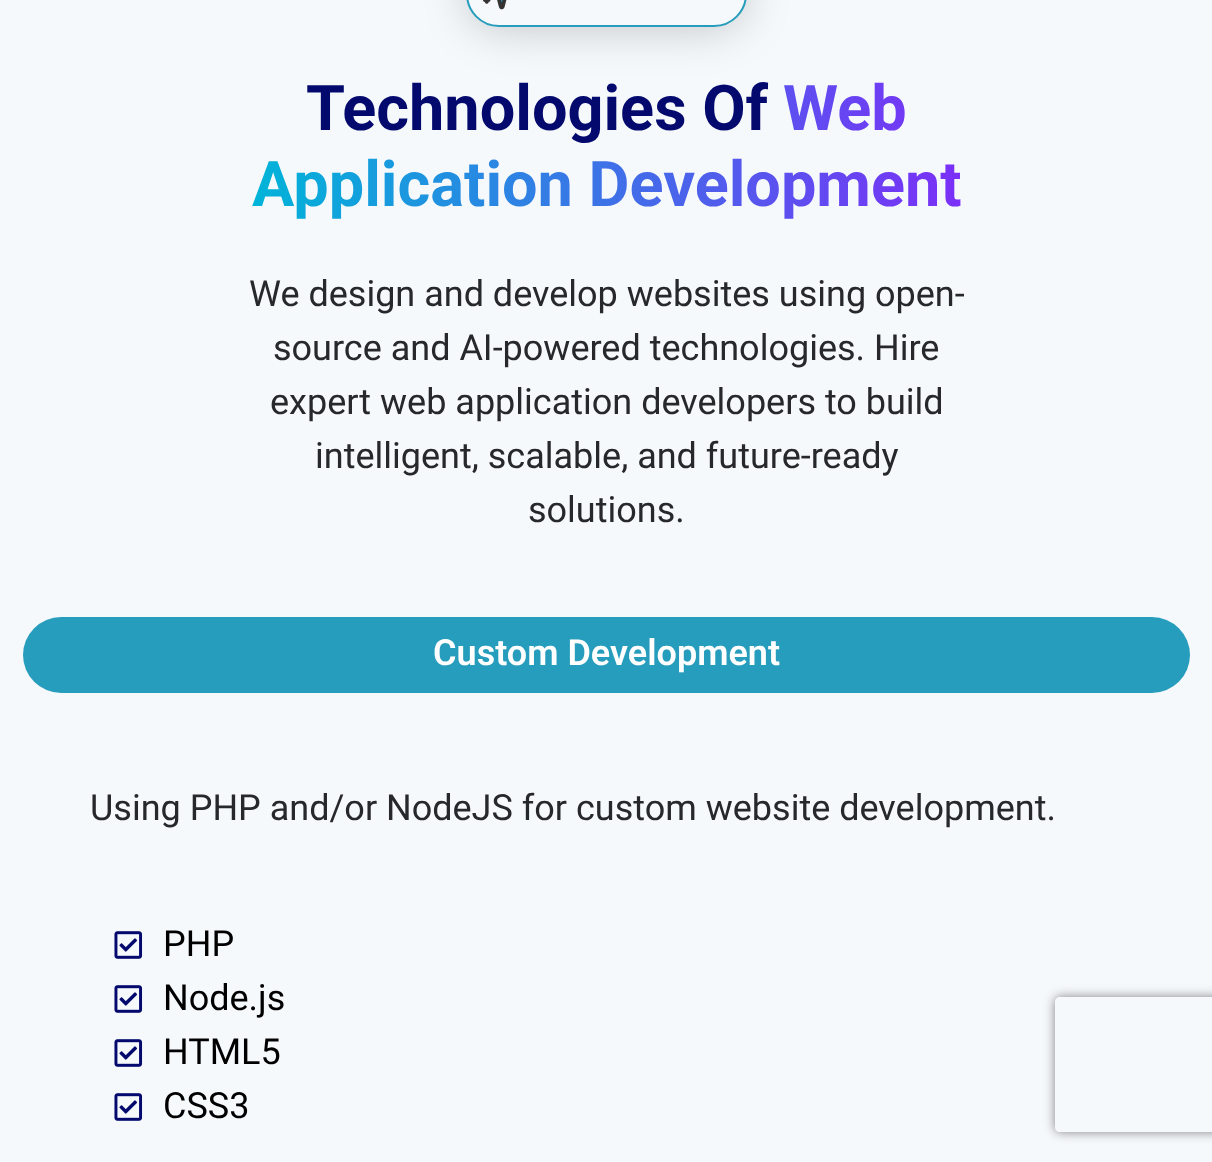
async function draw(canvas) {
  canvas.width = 1212
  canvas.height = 1162
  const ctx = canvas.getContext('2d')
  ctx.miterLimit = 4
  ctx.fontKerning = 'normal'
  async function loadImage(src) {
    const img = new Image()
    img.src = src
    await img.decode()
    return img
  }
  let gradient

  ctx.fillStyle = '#f6f9fc'
  ctx.fillRect(0, 0, 1212, 1162)
  ctx.save()
  ctx.beginPath()
  ctx.moveTo(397, 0)
  ctx.lineTo(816, 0)
  ctx.lineTo(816, 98)
  ctx.lineTo(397, 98)
  ctx.closePath()
  ctx.moveTo(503, -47)
  ctx.lineTo(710, -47)
  ctx.bezierCurveTo(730.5, -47, 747, -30.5, 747, -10)
  ctx.bezierCurveTo(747, 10.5, 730.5, 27, 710, 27)
  ctx.lineTo(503, 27)
  ctx.bezierCurveTo(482.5, 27, 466, 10.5, 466, -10)
  ctx.bezierCurveTo(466, -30.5, 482.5, -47, 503, -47)
  ctx.closePath()
  ctx.clip('evenodd')
  ctx.fillStyle = '#00000033'
  ctx.filter = 'blur(22.5px)'
  ctx.beginPath()
  ctx.roundRect(466, -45, 281, 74, 37)
  ctx.fill()
  ctx.filter = 'none'
  ctx.restore()
  ctx.beginPath()
  ctx.roundRect(467, -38, 279, 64, 36)
  ctx.strokeStyle = '#269dbc'
  ctx.lineWidth = 2
  ctx.stroke()
  ctx.drawImage(await loadImage('image0.png'), 483, 0, 24, 10)
  ctx.font = 'bold 63px Roboto'
  ctx.fillStyle = '#03096d'
  ctx.fillText('Technologies Of', 306, 130)
  gradient = ctx.createLinearGradient(252, 147, 961, 147)
  gradient.addColorStop(0, '#00b4d8')
  gradient.addColorStop(1, '#7b2ff7')
  ctx.fillStyle = gradient
  ctx.fillText('Web', 783, 130)
  ctx.fillText('Application Development', 252, 206)
  ctx.font = '36px Roboto'
  ctx.fillStyle = '#26282b'
  ctx.fillText('We design and develop websites using open-', 249, 306)
  ctx.fillText('source and AI-powered technologies. Hire', 273, 360)
  ctx.fillText('expert web application developers to build', 270, 414)
  ctx.fillText('intelligent, scalable, and future-ready', 315, 468)
  ctx.fillText('solutions.', 528, 522)
  ctx.fillStyle = '#269dbc'
  ctx.beginPath()
  ctx.roundRect(23, 617, 1167, 76, 38)
  ctx.fill()
  ctx.font = '600 36px Roboto'
  ctx.fillStyle = '#fff'
  ctx.fillText('Custom Development', 433, 665)
  ctx.font = '36px Roboto'
  ctx.fillStyle = '#26282b'
  ctx.fillText('Using PHP and/or NodeJS for custom website development.', 90, 820)
  ctx.drawImage(await loadImage('image1.png'), 114, 931, 29, 28)
  ctx.fillStyle = '#000'
  ctx.fillText('PHP', 163, 956)
  ctx.drawImage(await loadImage('image1.png'), 114, 985, 29, 28)
  ctx.fillText('Node.js', 163, 1010)
  ctx.drawImage(await loadImage('image1.png'), 114, 1039, 29, 28)
  ctx.fillText('HTML5', 163, 1064)
  ctx.drawImage(await loadImage('image1.png'), 114, 1093, 29, 28)
  ctx.fillText('CSS3', 163, 1118)
  ctx.save()
  ctx.beginPath()
  ctx.moveTo(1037, 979)
  ctx.lineTo(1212, 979)
  ctx.lineTo(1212, 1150)
  ctx.lineTo(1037, 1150)
  ctx.closePath()
  ctx.moveTo(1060, 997)
  ctx.lineTo(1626, 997)
  ctx.bezierCurveTo(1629, 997, 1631, 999, 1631, 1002)
  ctx.lineTo(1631, 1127)
  ctx.bezierCurveTo(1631, 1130, 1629, 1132, 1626, 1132)
  ctx.lineTo(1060, 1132)
  ctx.bezierCurveTo(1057, 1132, 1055, 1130, 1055, 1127)
  ctx.lineTo(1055, 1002)
  ctx.bezierCurveTo(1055, 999, 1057, 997, 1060, 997)
  ctx.closePath()
  ctx.clip('evenodd')
  ctx.fillStyle = '#808080'
  ctx.filter = 'blur(5.5px)'
  ctx.beginPath()
  ctx.roundRect(1055, 997, 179, 135, 5)
  ctx.fill()
  ctx.filter = 'none'
  ctx.restore()
}

draw(document.querySelector('canvas'))
